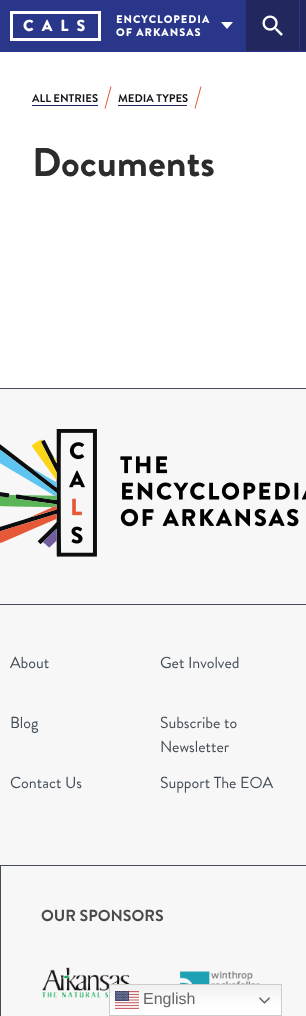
async function draw(canvas) {
  canvas.width = 306
  canvas.height = 1016
  const ctx = canvas.getContext('2d')
  ctx.miterLimit = 4
  ctx.fontKerning = 'normal'
  async function loadImage(src) {
    const img = new Image()
    img.src = src
    await img.decode()
    return img
  }
  let gradient

  ctx.fillStyle = '#fff'
  ctx.fillRect(0, 0, 306, 1016)
  ctx.fillStyle = '#22275d'
  ctx.fillRect(246, 0, 60, 51)
  ctx.fillStyle = '#2a368a'
  ctx.fillRect(0, 0, 245, 52)
  ctx.strokeStyle = '#fff'
  ctx.lineWidth = 3
  ctx.strokeRect(11.5, 12.5, 88, 27)
  ctx.letterSpacing = '8px'
  ctx.font = '900 16px Brandon Grotesque'
  ctx.fillStyle = '#fff'
  ctx.fillText('CALS', 23, 31)
  ctx.letterSpacing = '1px'
  ctx.font = '900 11px Brandon Grotesque'
  ctx.fillText('ENCYCLOPEDIA', 116, 23)
  ctx.fillText('OF ARKANSAS', 116, 36)
  ctx.beginPath()
  ctx.moveTo(221, 22)
  ctx.lineTo(233, 22)
  ctx.lineTo(227, 29)
  ctx.closePath()
  ctx.fill()
  ctx.fillStyle = '#2a368a'
  ctx.fillRect(245, 51, 61, 1)
  ctx.fillRect(299, 0, 1, 51)
  ctx.fillRect(245, 0, 1, 51)
  ctx.drawImage(await loadImage('image0.png'), 262, 15, 21, 21)
  ctx.letterSpacing = '0px'
  ctx.font = 'bold 11.25px Brandon Grotesque'
  ctx.fillStyle = '#121519'
  ctx.fillText('ALL ENTRIES', 32, 102)
  ctx.fillStyle = '#22275d'
  ctx.fillRect(32, 105, 66, 1)
  ctx.fillStyle = '#e45533'
  ctx.beginPath()
  ctx.moveTo(110.5, 86.5)
  ctx.lineTo(111.5, 86.5)
  ctx.lineTo(105.5, 108.5)
  ctx.lineTo(104.5, 108.5)
  ctx.closePath()
  ctx.fill()
  ctx.fillStyle = '#121519'
  ctx.fillText('MEDIA TYPES', 118, 102)
  ctx.fillStyle = '#22275d'
  ctx.fillRect(118, 105, 69, 1)
  ctx.fillStyle = '#e45533'
  ctx.beginPath()
  ctx.moveTo(200.5, 86.5)
  ctx.lineTo(201.5, 86.5)
  ctx.lineTo(195.5, 108.5)
  ctx.lineTo(194.5, 108.5)
  ctx.closePath()
  ctx.fill()
  ctx.font = 'bold 40px Brandon Grotesque'
  ctx.fillStyle = '#2c2c2c'
  ctx.fillText('Documents', 32, 176)
  ctx.fillStyle = '#f7f7f7'
  ctx.fillRect(0, 389, 306, 627)
  ctx.fillStyle = '#434c56'
  ctx.fillRect(0, 388, 306, 1)
  ctx.fillRect(0, 865, 306, 1)
  ctx.drawImage(await loadImage('image1.png'), 0, 429, 306, 128)
  ctx.fillRect(0, 604, 306, 1)
  ctx.font = '16px Brandon Grotesque'
  ctx.fillText('About', 10, 668)
  ctx.fillText('Get Involved', 160, 668)
  ctx.fillText('Blog', 10, 728)
  ctx.fillText('Subscribe to', 160, 728)
  ctx.fillText('Newsletter', 160, 752)
  ctx.fillText('Contact Us', 10, 788)
  ctx.fillText('Support The EOA', 160, 788)
  ctx.fillRect(0, 866, 1, 150)
  ctx.font = 'bold 16px Brandon Grotesque'
  ctx.fillStyle = '#4a4a4a'
  ctx.fillText('OUR SPONSORS', 41, 921)
  ctx.drawImage(await loadImage('image2.png'), 41, 967, 89, 31)
  ctx.drawImage(await loadImage('image3.png'), 180, 971, 80, 13)
  gradient = ctx.createLinearGradient(196, 984, 196, 1016)
  gradient.addColorStop(0, '#efefef')
  gradient.addColorStop(0.7, '#fff')
  ctx.fillStyle = gradient
  ctx.fillRect(110, 985, 171, 30)
  ctx.strokeStyle = '#ccc'
  ctx.lineWidth = 1
  ctx.strokeRect(109.5, 984.5, 172, 31)
  ctx.drawImage(await loadImage('image4.png'), 115, 991, 24, 18)
  ctx.font = '16px Liberation Sans'
  ctx.fillStyle = '#666'
  ctx.fillText('English', 143, 1004)
  ctx.drawImage(await loadImage('image5.png'), 259, 997, 11, 7)
}

draw(document.querySelector('canvas'))
